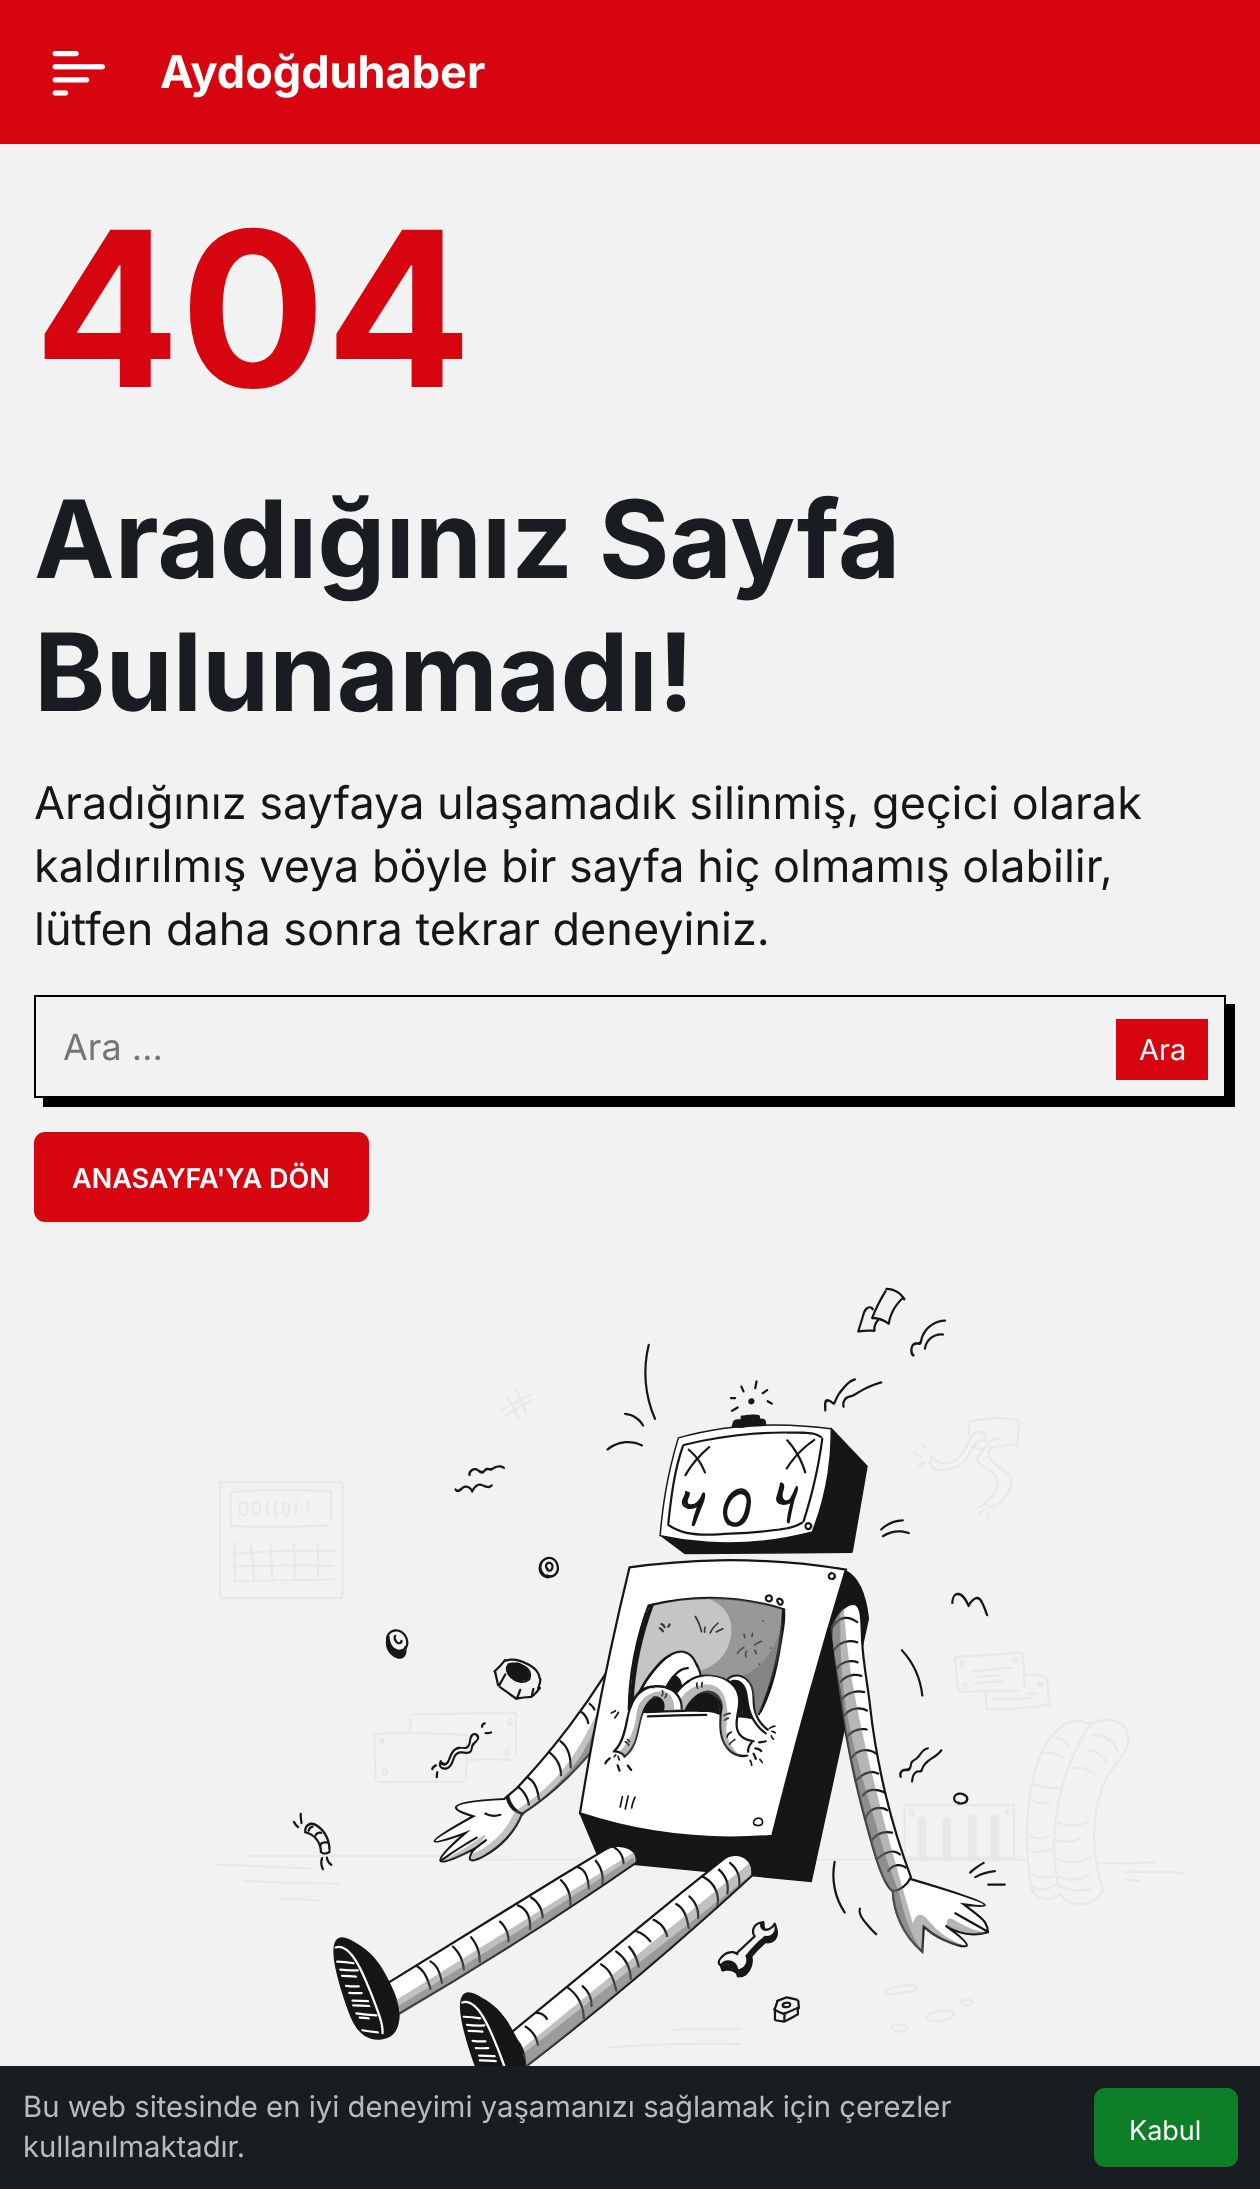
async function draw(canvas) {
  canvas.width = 1260
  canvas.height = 2189
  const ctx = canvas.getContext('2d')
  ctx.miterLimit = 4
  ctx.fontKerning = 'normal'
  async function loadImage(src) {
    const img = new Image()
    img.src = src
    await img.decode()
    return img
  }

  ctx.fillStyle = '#f2f2f3'
  ctx.fillRect(0, 0, 1260, 2189)
  ctx.fillStyle = '#d7050f'
  ctx.fillRect(0, 0, 1260, 144)
  ctx.drawImage(await loadImage('image0.png'), 52, 51, 53, 45)
  ctx.font = 'bold 45px Inter'
  ctx.fillStyle = '#fff'
  ctx.fillText('Aydoğduhaber', 160, 88)
  ctx.font = 'bold 216px Inter'
  ctx.fillStyle = '#d7050f'
  ctx.fillText('404', 34, 387)
  ctx.font = 'bold 108px Inter'
  ctx.fillStyle = '#191c20'
  ctx.fillText('Aradığınız Sayfa', 34, 578)
  ctx.fillText('Bulunamadı!', 34, 711)
  ctx.font = '45px Inter'
  ctx.fillStyle = '#161616'
  ctx.fillText('Aradığınız sayfaya ulaşamadık silinmiş, geçici olarak', 34, 819)
  ctx.fillText('kaldırılmış veya böyle bir sayfa hiç olmamış olabilir,', 34, 882)
  ctx.fillText('lütfen daha sonra tekrar deneyiniz.', 34, 945)
  ctx.fillStyle = '#000'
  ctx.beginPath()
  ctx.moveTo(43, 1098)
  ctx.lineTo(43, 1107)
  ctx.lineTo(1235, 1107)
  ctx.lineTo(1235, 1004)
  ctx.lineTo(1226, 1004)
  ctx.lineTo(1226, 1098)
  ctx.closePath()
  ctx.fill()
  ctx.strokeStyle = '#000'
  ctx.lineWidth = 2
  ctx.strokeRect(35, 996, 1190, 101)
  ctx.font = '36px Inter'
  ctx.fillStyle = '#757575'
  ctx.fillText('Ara …', 63, 1060)
  ctx.fillStyle = '#d7050f'
  ctx.fillRect(1116, 1019, 92, 61)
  ctx.font = '29px Inter'
  ctx.fillStyle = '#fff'
  ctx.fillText('Ara', 1139, 1060)
  ctx.fillStyle = '#d7050f'
  ctx.beginPath()
  ctx.roundRect(34, 1132, 335, 90, 11)
  ctx.fill()
  ctx.font = '600 27px Inter'
  ctx.fillStyle = '#fff'
  ctx.fillText('ANASAYFA\'YA DÖN', 72, 1188)
  ctx.drawImage(await loadImage('image1.png'), 216, 1287, 969, 779)
  ctx.fillStyle = '#191c20'
  ctx.fillRect(0, 2066, 1260, 123)
  ctx.font = '29.25px Inter'
  ctx.fillStyle = '#babbbc'
  ctx.fillText('Bu web sitesinde en iyi deneyimi yaşamanızı sağlamak için çerezler', 23, 2117)
  ctx.fillText('kullanılmaktadır.', 23, 2157)
  ctx.fillStyle = '#0f7e29'
  ctx.beginPath()
  ctx.roundRect(1094, 2088, 144, 79, 11)
  ctx.fill()
  ctx.font = '27px Inter'
  ctx.fillStyle = '#fff'
  ctx.fillText('Kabul', 1129, 2140)
}

draw(document.querySelector('canvas'))
